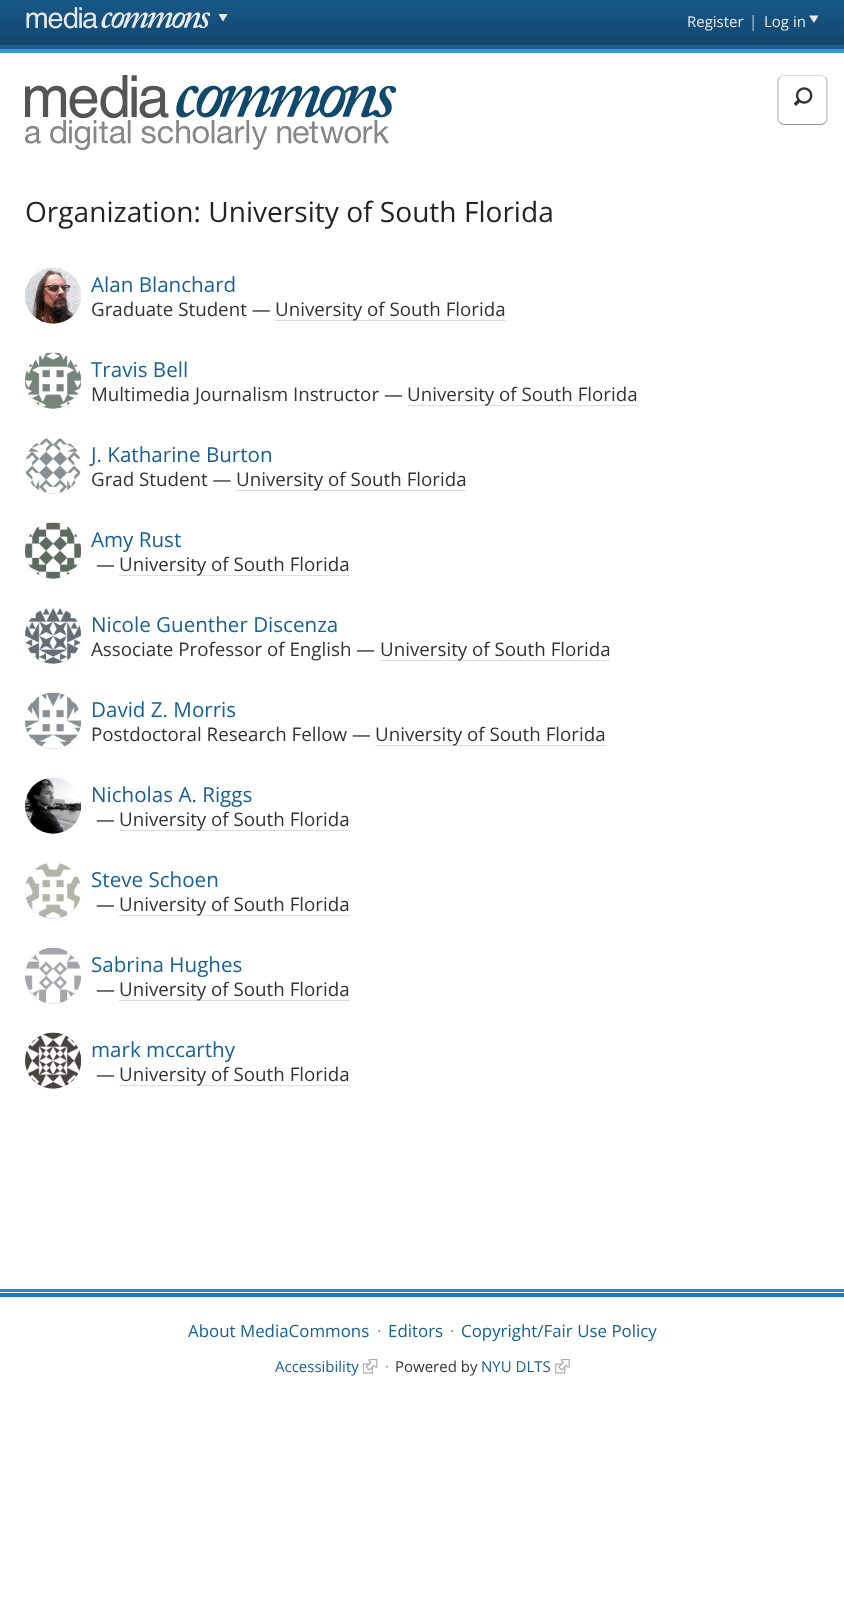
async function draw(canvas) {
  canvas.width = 844
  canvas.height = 1599
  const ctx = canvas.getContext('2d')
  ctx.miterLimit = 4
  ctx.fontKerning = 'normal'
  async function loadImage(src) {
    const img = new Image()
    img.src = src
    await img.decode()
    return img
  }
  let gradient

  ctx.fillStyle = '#fff'
  ctx.fillRect(0, 0, 844, 1599)
  ctx.fillStyle = '#3797dd'
  ctx.fillRect(0, 49, 844, 4)
  gradient = ctx.createLinearGradient(423, 0, 423, 45)
  gradient.addColorStop(0, '#175888')
  gradient.addColorStop(1, '#12476e')
  ctx.fillStyle = gradient
  ctx.fillRect(0, 0, 844, 45)
  ctx.fillStyle = '#196195'
  ctx.fillRect(0, 45, 844, 4)
  ctx.drawImage(await loadImage('image0.png'), 26, 7, 202, 22)
  ctx.drawImage(await loadImage('image1.png'), 752, 15, 2, 17)
  ctx.font = '15px Open Sans'
  ctx.fillStyle = '#e9e9e9'
  ctx.fillText('Register', 687, 27)
  ctx.fillText('Log in', 764, 27)
  ctx.beginPath()
  ctx.moveTo(809, 15.5)
  ctx.lineTo(818.5, 15.5)
  ctx.lineTo(814, 23)
  ctx.closePath()
  ctx.fill()
  ctx.drawImage(await loadImage('image2.png'), 25, 75, 371, 75)
  ctx.beginPath()
  ctx.moveTo(780, 77.5)
  ctx.bezierCurveTo(781, 76, 782.5, 75.5, 784, 75.5)
  ctx.lineTo(821, 75.5)
  ctx.bezierCurveTo(822.5, 75.5, 824, 76, 825, 77.5)
  ctx.strokeStyle = '#ddd'
  ctx.lineWidth = 1.2
  ctx.stroke()
  ctx.beginPath()
  ctx.moveTo(825, 77.5)
  ctx.bezierCurveTo(826.5, 78.5, 827, 80, 827, 81)
  ctx.lineTo(827, 119)
  ctx.bezierCurveTo(827, 120, 826.5, 121.5, 825, 122.5)
  ctx.strokeStyle = '#bbb'
  ctx.stroke()
  ctx.beginPath()
  ctx.moveTo(825, 122.5)
  ctx.bezierCurveTo(824, 124, 822.5, 124.5, 821, 124.5)
  ctx.lineTo(784, 124.5)
  ctx.bezierCurveTo(782.5, 124.5, 781, 124, 780, 122.5)
  ctx.strokeStyle = '#999'
  ctx.stroke()
  ctx.beginPath()
  ctx.moveTo(780, 122.5)
  ctx.bezierCurveTo(778.5, 121.5, 778, 120, 778, 119)
  ctx.lineTo(778, 81)
  ctx.bezierCurveTo(778, 80, 778.5, 78.5, 780, 77.5)
  ctx.strokeStyle = '#bbb'
  ctx.stroke()
  ctx.drawImage(await loadImage('image3.png'), 793, 87, 20, 19)
  ctx.font = '28.1px Open Sans'
  ctx.fillStyle = '#232323'
  ctx.fillText('Organization: University of South Florida', 25, 222)
  ctx.fillStyle = '#c8c8c8'
  ctx.beginPath()
  ctx.arc(53, 296, 28, 0, 2 * Math.PI)
  ctx.fill()
  ctx.drawImage(await loadImage('image4.png'), 25, 267, 56, 57)
  ctx.font = '20.6px Open Sans'
  ctx.fillStyle = '#196195'
  ctx.fillText('Alan Blanchard', 91, 292)
  ctx.font = '18.75px Open Sans'
  ctx.fillStyle = '#333'
  ctx.fillText('Graduate Student —', 91, 316)
  ctx.fillStyle = '#ddd'
  ctx.fillRect(275, 320, 231, 1)
  ctx.fillStyle = '#333'
  ctx.fillText('University of South Florida', 275, 316)
  ctx.fillStyle = '#c8c8c8'
  ctx.beginPath()
  ctx.arc(53, 381, 28, 0, 2 * Math.PI)
  ctx.fill()
  ctx.drawImage(await loadImage('image5.png'), 25, 352, 57, 57)
  ctx.font = '20.6px Open Sans'
  ctx.fillStyle = '#196195'
  ctx.fillText('Travis Bell', 91, 377)
  ctx.font = '18.75px Open Sans'
  ctx.fillStyle = '#333'
  ctx.fillText('Multimedia Journalism Instructor —', 91, 401)
  ctx.fillStyle = '#ddd'
  ctx.fillRect(408, 405, 230, 1)
  ctx.fillStyle = '#333'
  ctx.fillText('University of South Florida', 407, 401)
  ctx.fillStyle = '#c8c8c8'
  ctx.beginPath()
  ctx.arc(53, 466, 28, 0, 2 * Math.PI)
  ctx.fill()
  ctx.drawImage(await loadImage('image6.png'), 25, 438, 56, 56)
  ctx.font = '20.6px Open Sans'
  ctx.fillStyle = '#196195'
  ctx.fillText('J. Katharine Burton', 91, 462)
  ctx.font = '18.75px Open Sans'
  ctx.fillStyle = '#333'
  ctx.fillText('Grad Student —', 91, 486)
  ctx.fillStyle = '#ddd'
  ctx.fillRect(236, 490, 230, 1)
  ctx.fillStyle = '#333'
  ctx.fillText('University of South Florida', 236, 486)
  ctx.fillStyle = '#c8c8c8'
  ctx.beginPath()
  ctx.arc(53, 551, 28, 0, 2 * Math.PI)
  ctx.fill()
  ctx.drawImage(await loadImage('image7.png'), 25, 522, 57, 57)
  ctx.font = '20.6px Open Sans'
  ctx.fillStyle = '#196195'
  ctx.fillText('Amy Rust', 91, 547)
  ctx.font = '18.75px Open Sans'
  ctx.fillStyle = '#333'
  ctx.fillText('—', 96, 571)
  ctx.fillStyle = '#ddd'
  ctx.fillRect(119, 575, 231, 1)
  ctx.fillStyle = '#333'
  ctx.fillText('University of South Florida', 119, 571)
  ctx.fillStyle = '#c8c8c8'
  ctx.beginPath()
  ctx.arc(53, 636, 28, 0, 2 * Math.PI)
  ctx.fill()
  ctx.drawImage(await loadImage('image8.png'), 25, 608, 57, 56)
  ctx.font = '20.6px Open Sans'
  ctx.fillStyle = '#196195'
  ctx.fillText('Nicole Guenther Discenza', 91, 632)
  ctx.font = '18.75px Open Sans'
  ctx.fillStyle = '#333'
  ctx.fillText('Associate Professor of English —', 91, 656)
  ctx.fillStyle = '#ddd'
  ctx.fillRect(380, 660, 230, 1)
  ctx.fillStyle = '#333'
  ctx.fillText('University of South Florida', 380, 656)
  ctx.fillStyle = '#c8c8c8'
  ctx.beginPath()
  ctx.arc(53, 721, 28, 0, 2 * Math.PI)
  ctx.fill()
  ctx.drawImage(await loadImage('image9.png'), 25, 692, 57, 57)
  ctx.font = '20.6px Open Sans'
  ctx.fillStyle = '#196195'
  ctx.fillText('David Z. Morris', 91, 717)
  ctx.font = '18.75px Open Sans'
  ctx.fillStyle = '#333'
  ctx.fillText('Postdoctoral Research Fellow —', 91, 741)
  ctx.fillStyle = '#ddd'
  ctx.fillRect(375, 745, 231, 1)
  ctx.fillStyle = '#333'
  ctx.fillText('University of South Florida', 375, 741)
  ctx.fillStyle = '#c8c8c8'
  ctx.beginPath()
  ctx.arc(53, 806, 28, 0, 2 * Math.PI)
  ctx.fill()
  ctx.drawImage(await loadImage('image10.png'), 25, 777, 57, 57)
  ctx.font = '20.6px Open Sans'
  ctx.fillStyle = '#196195'
  ctx.fillText('Nicholas A. Riggs', 91, 802)
  ctx.font = '18.75px Open Sans'
  ctx.fillStyle = '#333'
  ctx.fillText('—', 96, 826)
  ctx.fillStyle = '#ddd'
  ctx.fillRect(119, 830, 231, 1)
  ctx.fillStyle = '#333'
  ctx.fillText('University of South Florida', 119, 826)
  ctx.fillStyle = '#c8c8c8'
  ctx.beginPath()
  ctx.arc(53, 891, 28, 0, 2 * Math.PI)
  ctx.fill()
  ctx.drawImage(await loadImage('image11.png'), 25, 863, 56, 56)
  ctx.font = '20.6px Open Sans'
  ctx.fillStyle = '#196195'
  ctx.fillText('Steve Schoen', 91, 887)
  ctx.font = '18.75px Open Sans'
  ctx.fillStyle = '#333'
  ctx.fillText('—', 96, 911)
  ctx.fillStyle = '#ddd'
  ctx.fillRect(119, 915, 231, 1)
  ctx.fillStyle = '#333'
  ctx.fillText('University of South Florida', 119, 911)
  ctx.fillStyle = '#c8c8c8'
  ctx.beginPath()
  ctx.arc(53, 976, 28, 0, 2 * Math.PI)
  ctx.fill()
  ctx.drawImage(await loadImage('image12.png'), 25, 947, 57, 57)
  ctx.font = '20.6px Open Sans'
  ctx.fillStyle = '#196195'
  ctx.fillText('Sabrina Hughes', 91, 972)
  ctx.font = '18.75px Open Sans'
  ctx.fillStyle = '#333'
  ctx.fillText('—', 96, 996)
  ctx.fillStyle = '#ddd'
  ctx.fillRect(119, 1000, 231, 1)
  ctx.fillStyle = '#333'
  ctx.fillText('University of South Florida', 119, 996)
  ctx.fillStyle = '#c8c8c8'
  ctx.beginPath()
  ctx.arc(53, 1061, 28, 0, 2 * Math.PI)
  ctx.fill()
  ctx.drawImage(await loadImage('image13.png'), 25, 1032, 57, 57)
  ctx.font = '20.6px Open Sans'
  ctx.fillStyle = '#196195'
  ctx.fillText('mark mccarthy', 91, 1057)
  ctx.font = '18.75px Open Sans'
  ctx.fillStyle = '#333'
  ctx.fillText('—', 96, 1081)
  ctx.fillStyle = '#ddd'
  ctx.fillRect(119, 1085, 231, 1)
  ctx.fillStyle = '#333'
  ctx.fillText('University of South Florida', 119, 1081)
  ctx.fillStyle = '#248cd7'
  ctx.fillRect(0, 1289, 844, 3)
  ctx.fillStyle = '#207bbc'
  ctx.fillRect(0, 1293, 844, 4)
  ctx.font = '16.9px Open Sans'
  ctx.fillStyle = '#196195'
  ctx.fillText('About MediaCommons', 188, 1337)
  ctx.fillStyle = '#999'
  ctx.fillText('·', 377, 1337)
  ctx.fillStyle = '#196195'
  ctx.fillText('Editors', 388, 1337)
  ctx.fillStyle = '#999'
  ctx.fillText('·', 450, 1337)
  ctx.fillStyle = '#196195'
  ctx.fillText('Copyright/Fair Use Policy', 461, 1337)
  ctx.font = '15px Open Sans'
  ctx.fillText('Accessibility', 275, 1372)
  ctx.drawImage(await loadImage('image14.png'), 363, 1359, 15, 15)
  ctx.fillStyle = '#999'
  ctx.fillText('·', 385, 1372)
  ctx.fillStyle = '#333'
  ctx.fillText('Powered by', 395, 1372)
  ctx.fillStyle = '#196195'
  ctx.fillText('NYU DLTS', 481, 1372)
  ctx.drawImage(await loadImage('image15.png'), 555, 1359, 15, 15)
}

draw(document.querySelector('canvas'))
